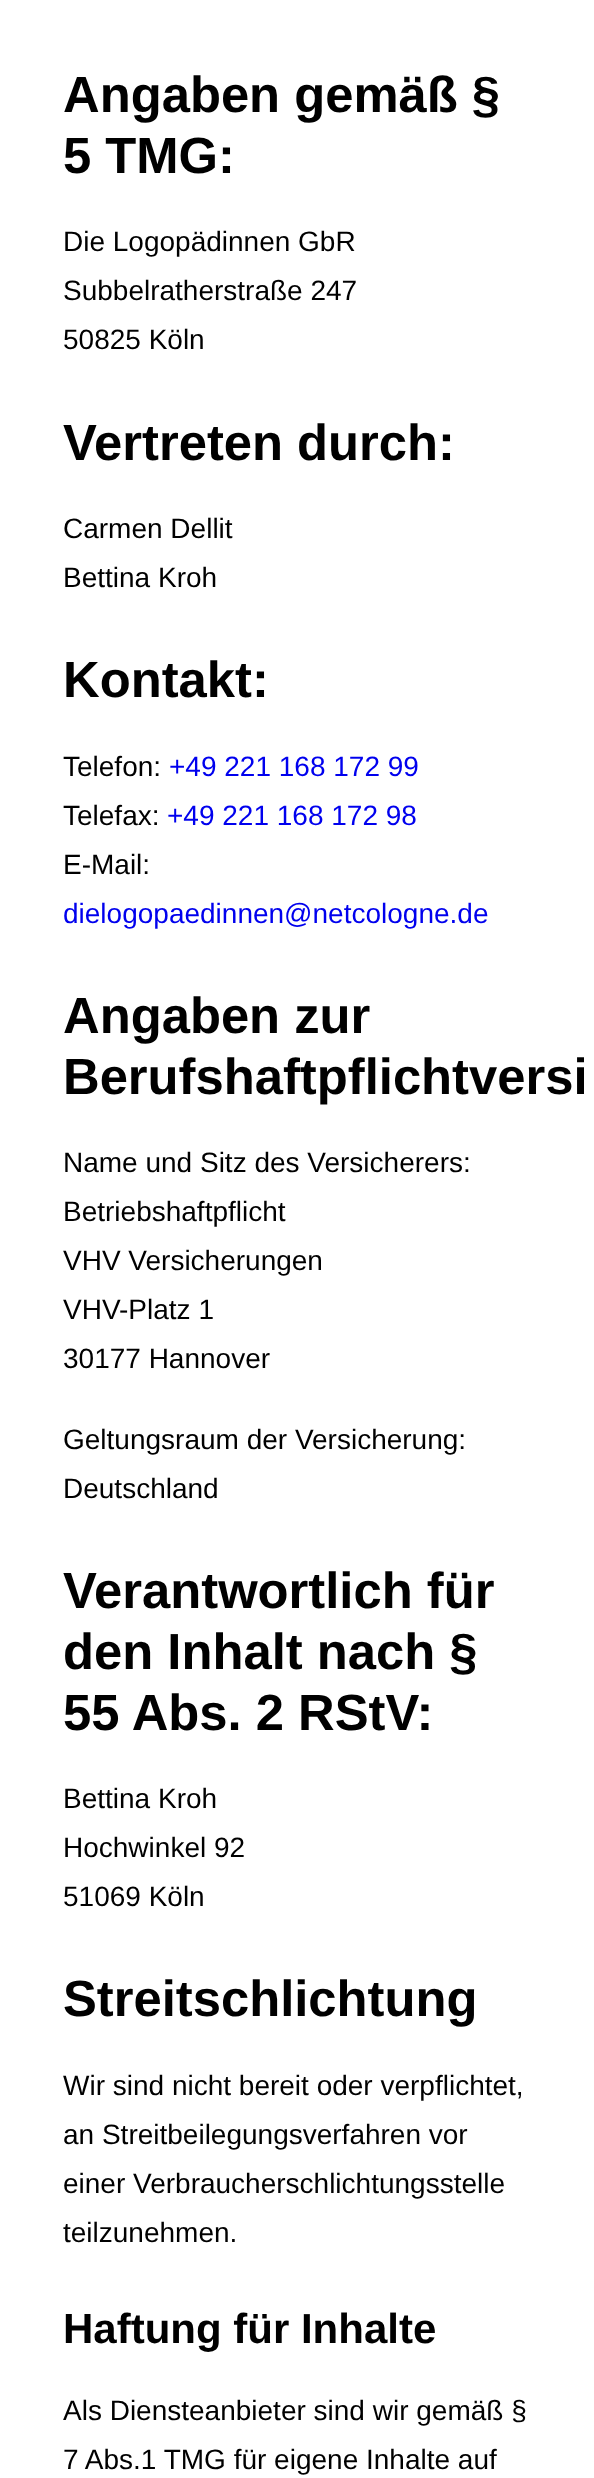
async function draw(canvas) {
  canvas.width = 594
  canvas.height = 2478
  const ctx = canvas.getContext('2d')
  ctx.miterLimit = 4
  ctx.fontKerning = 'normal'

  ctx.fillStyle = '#fff'
  ctx.fillRect(0, 0, 594, 2478)
  ctx.font = 'bold 50.75px Liberation Sans'
  ctx.fillStyle = '#000'
  ctx.fillText('Angaben gemäß §', 63, 112)
  ctx.fillText('5 TMG:', 63, 173)
  ctx.font = '28px Liberation Sans'
  ctx.fillText('Die Logopädinnen GbR', 63, 251)
  ctx.fillText('Subbelratherstraße 247', 63, 300)
  ctx.fillText('50825 Köln', 63, 349)
  ctx.font = 'bold 50.75px Liberation Sans'
  ctx.fillText('Vertreten durch:', 63, 460)
  ctx.font = '28px Liberation Sans'
  ctx.fillText('Carmen Dellit', 63, 538)
  ctx.fillText('Bettina Kroh', 63, 587)
  ctx.font = 'bold 50.75px Liberation Sans'
  ctx.fillText('Kontakt:', 63, 697)
  ctx.font = '28px Liberation Sans'
  ctx.fillText('Telefon:', 63, 776)
  ctx.fillStyle = '#00e'
  ctx.fillText('+49 221 168 172 99', 169, 776)
  ctx.fillStyle = '#000'
  ctx.fillText('Telefax:', 63, 825)
  ctx.fillStyle = '#00e'
  ctx.fillText('+49 221 168 172 98', 167, 825)
  ctx.fillStyle = '#000'
  ctx.fillText('E-Mail:', 63, 874)
  ctx.fillStyle = '#00e'
  ctx.fillText('dielogopaedinnen@netcologne.de', 63, 923)
  ctx.font = 'bold 50.75px Liberation Sans'
  ctx.fillStyle = '#000'
  ctx.fillText('Angaben zur', 63, 1033)
  ctx.fillText('Berufshaftpflichtversi', 63, 1094)
  ctx.font = '28px Liberation Sans'
  ctx.fillText('Name und Sitz des Versicherers:', 63, 1172)
  ctx.fillText('Betriebshaftpflicht', 63, 1221)
  ctx.fillText('VHV Versicherungen', 63, 1270)
  ctx.fillText('VHV-Platz 1', 63, 1319)
  ctx.fillText('30177 Hannover', 63, 1368)
  ctx.fillText('Geltungsraum der Versicherung:', 63, 1449)
  ctx.fillText('Deutschland', 63, 1498)
  ctx.font = 'bold 50.75px Liberation Sans'
  ctx.fillText('Verantwortlich für', 63, 1608)
  ctx.fillText('den Inhalt nach §', 63, 1669)
  ctx.fillText('55 Abs. 2 RStV:', 63, 1730)
  ctx.font = '28px Liberation Sans'
  ctx.fillText('Bettina Kroh', 63, 1808)
  ctx.fillText('Hochwinkel 92', 63, 1857)
  ctx.fillText('51069 Köln', 63, 1906)
  ctx.font = 'bold 50.75px Liberation Sans'
  ctx.fillText('Streitschlichtung', 63, 2016)
  ctx.font = '28px Liberation Sans'
  ctx.fillText('Wir sind nicht bereit oder verpflichtet,', 63, 2095)
  ctx.fillText('an Streitbeilegungsverfahren vor', 63, 2144)
  ctx.fillText('einer Verbraucherschlichtungsstelle', 63, 2193)
  ctx.fillText('teilzunehmen.', 63, 2242)
  ctx.font = 'bold 42px Liberation Sans'
  ctx.fillText('Haftung für Inhalte', 63, 2343)
  ctx.font = '28px Liberation Sans'
  ctx.fillText('Als Diensteanbieter sind wir gemäß §', 63, 2420)
  ctx.fillText('7 Abs.1 TMG für eigene Inhalte auf', 63, 2469)
}

draw(document.querySelector('canvas'))
